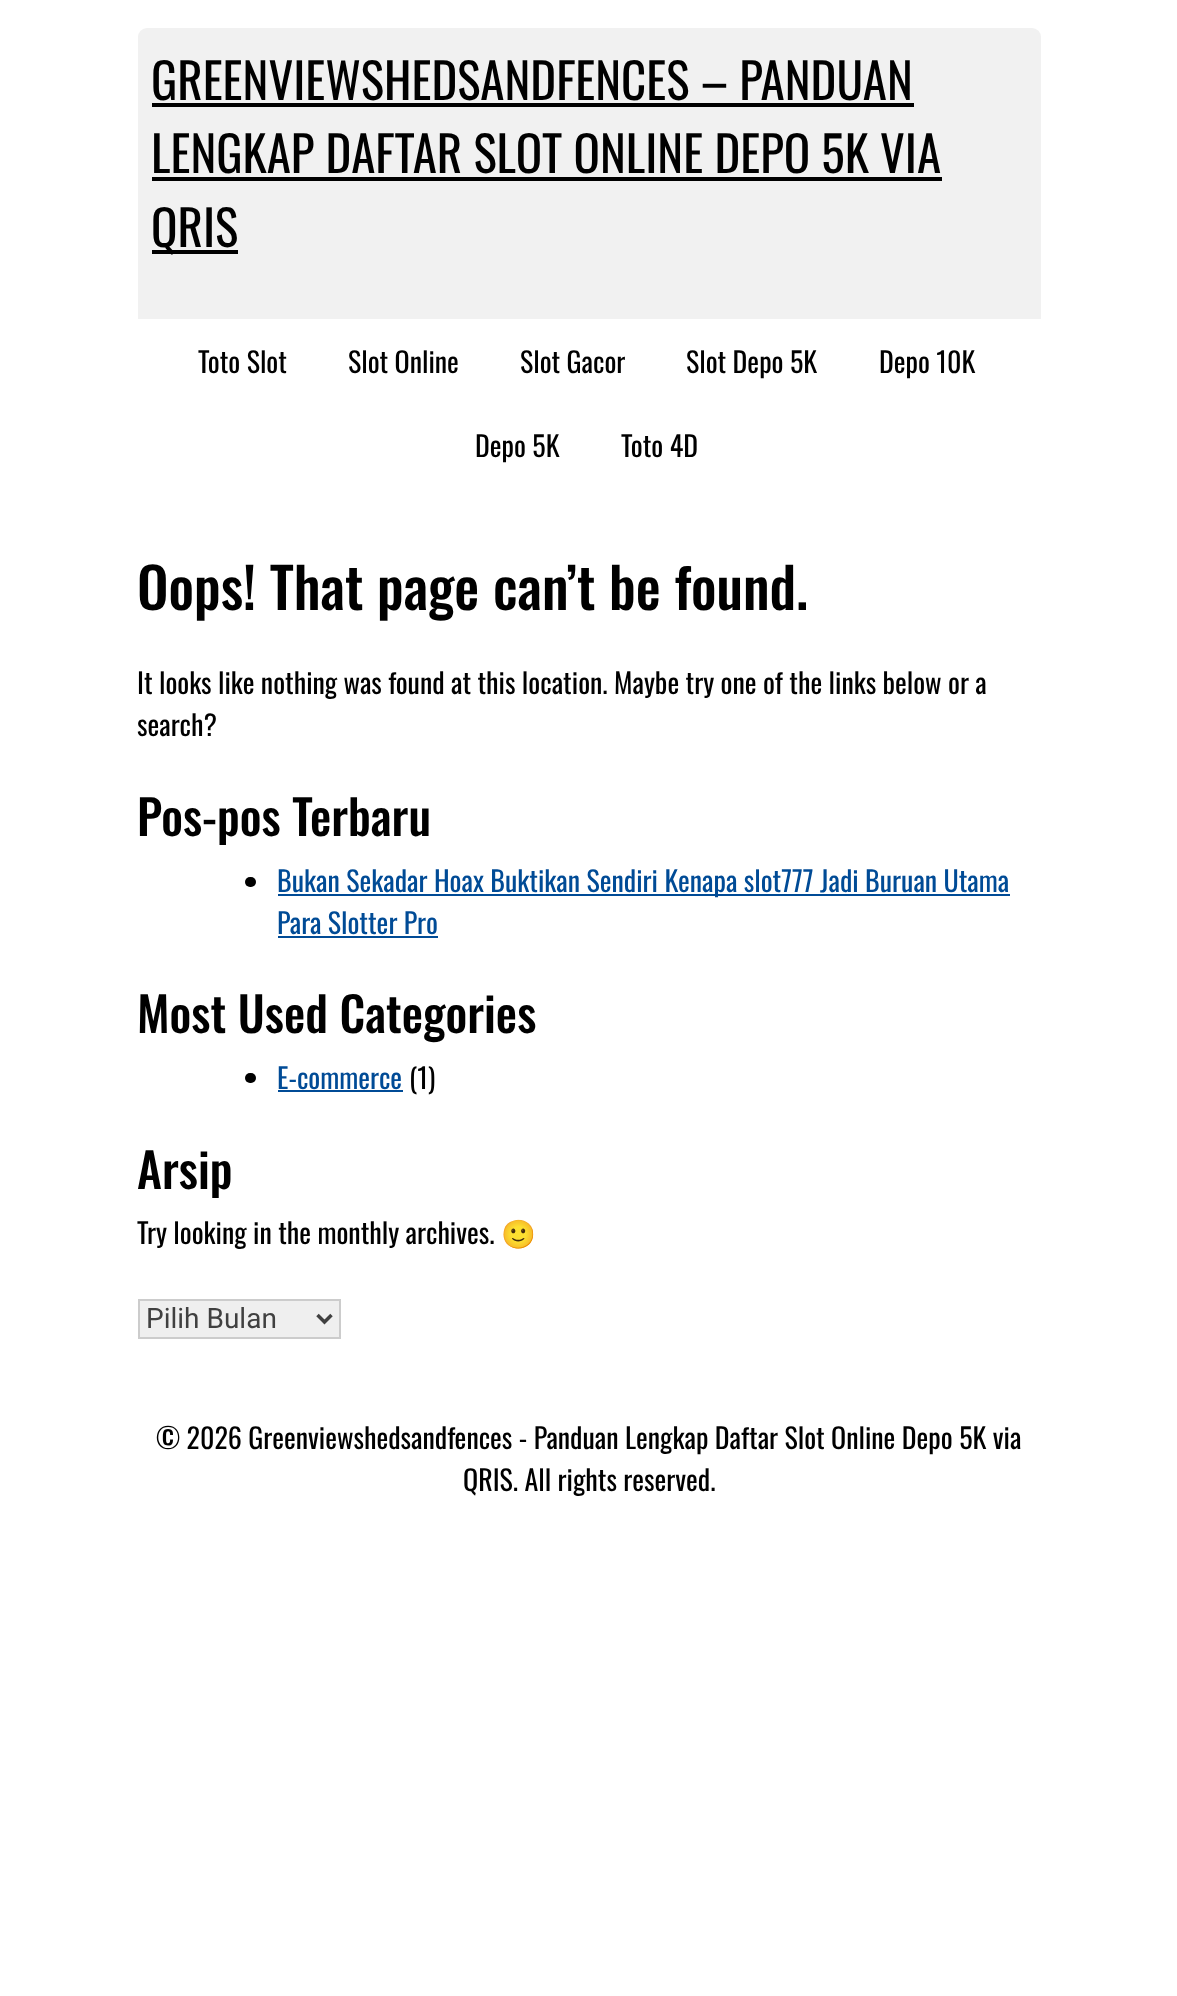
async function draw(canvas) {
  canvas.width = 1177
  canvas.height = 1996
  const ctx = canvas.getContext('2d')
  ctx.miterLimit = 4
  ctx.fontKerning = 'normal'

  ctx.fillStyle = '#fff'
  ctx.fillRect(0, 0, 1177, 1996)
  ctx.fillStyle = '#f1f1f1'
  ctx.beginPath()
  ctx.roundRect(138, 28, 903, 291, [9, 9, 0, 0])
  ctx.fill()
  ctx.font = '49px Oswald'
  ctx.fillStyle = '#000'
  ctx.fillText('GREENVIEWSHEDSANDFENCES – PANDUAN', 151, 100)
  ctx.fillRect(152, 103, 762, 4)
  ctx.fillText('LENGKAP DAFTAR SLOT ONLINE DEPO 5K VIA', 151, 173)
  ctx.fillRect(152, 177, 790, 4)
  ctx.fillRect(152, 250, 86, 4)
  ctx.fillText('QRIS', 151, 247)
  ctx.font = '28px Oswald'
  ctx.fillText('Toto Slot', 198, 373)
  ctx.fillText('Slot Online', 348, 373)
  ctx.fillText('Slot Gacor', 520, 373)
  ctx.fillText('Slot Depo 5K', 686, 373)
  ctx.fillText('Depo 10K', 879, 373)
  ctx.fillText('Depo 5K', 475, 457)
  ctx.fillText('Toto 4D', 621, 457)
  ctx.font = '500 56px Oswald'
  ctx.fillText('Oops! That page can’t be found.', 137, 610)
  ctx.font = '28px Oswald'
  ctx.fillText('It looks like nothing was found at this location. Maybe try one of the links below or a', 137, 694)
  ctx.fillText('search?', 137, 736)
  ctx.font = '500 47.75px Oswald'
  ctx.fillText('Pos-pos Terbaru', 137, 836)
  ctx.beginPath()
  ctx.roundRect(245, 877, 11, 10, 5)
  ctx.fill()
  ctx.fillStyle = '#004b96'
  ctx.fillRect(278, 894, 732, 2)
  ctx.font = '28px Oswald'
  ctx.fillText('Bukan Sekadar Hoax Buktikan Sendiri Kenapa slot777 Jadi Buruan Utama', 277, 892)
  ctx.fillText('Para Slotter Pro', 277, 934)
  ctx.fillRect(278, 936, 160, 2)
  ctx.font = '500 47.75px Oswald'
  ctx.fillStyle = '#000'
  ctx.fillText('Most Used Categories', 137, 1033)
  ctx.beginPath()
  ctx.roundRect(245, 1073, 11, 10, 5)
  ctx.fill()
  ctx.font = '28px Oswald'
  ctx.fillStyle = '#004b96'
  ctx.fillText('E-commerce', 277, 1089)
  ctx.fillRect(278, 1090, 125, 2)
  ctx.fillStyle = '#000'
  ctx.fillText('(1)', 409, 1089)
  ctx.font = '500 47.75px Oswald'
  ctx.fillText('Arsip', 137, 1189)
  ctx.font = '28px Oswald'
  ctx.fillText('Try looking in the monthly archives.', 137, 1244)
  ctx.font = '28px Noto Color Emoji'
  ctx.fillText('🙂', 501, 1244)
  ctx.fillStyle = '#efefef'
  ctx.beginPath()
  ctx.rect(139, 1300, 201, 38)
  ctx.fill()
  ctx.strokeStyle = '#ccc'
  ctx.lineWidth = 2
  ctx.stroke()
  ctx.beginPath()
  ctx.moveTo(317.5, 1315)
  ctx.lineTo(324.5, 1322)
  ctx.lineTo(331.5, 1315)
  ctx.strokeStyle = '#404040'
  ctx.lineWidth = 3.5
  ctx.stroke()
  ctx.font = '28px Roboto'
  ctx.fillStyle = '#404040'
  ctx.fillText('Pilih Bulan', 146, 1328)
  ctx.font = '28px Oswald'
  ctx.fillStyle = '#000'
  ctx.fillText('© 2026 Greenviewshedsandfences - Panduan Lengkap Daftar Slot Online Depo 5K via', 156, 1449)
  ctx.fillText('QRIS. All rights reserved.', 463, 1491)
}

draw(document.querySelector('canvas'))
